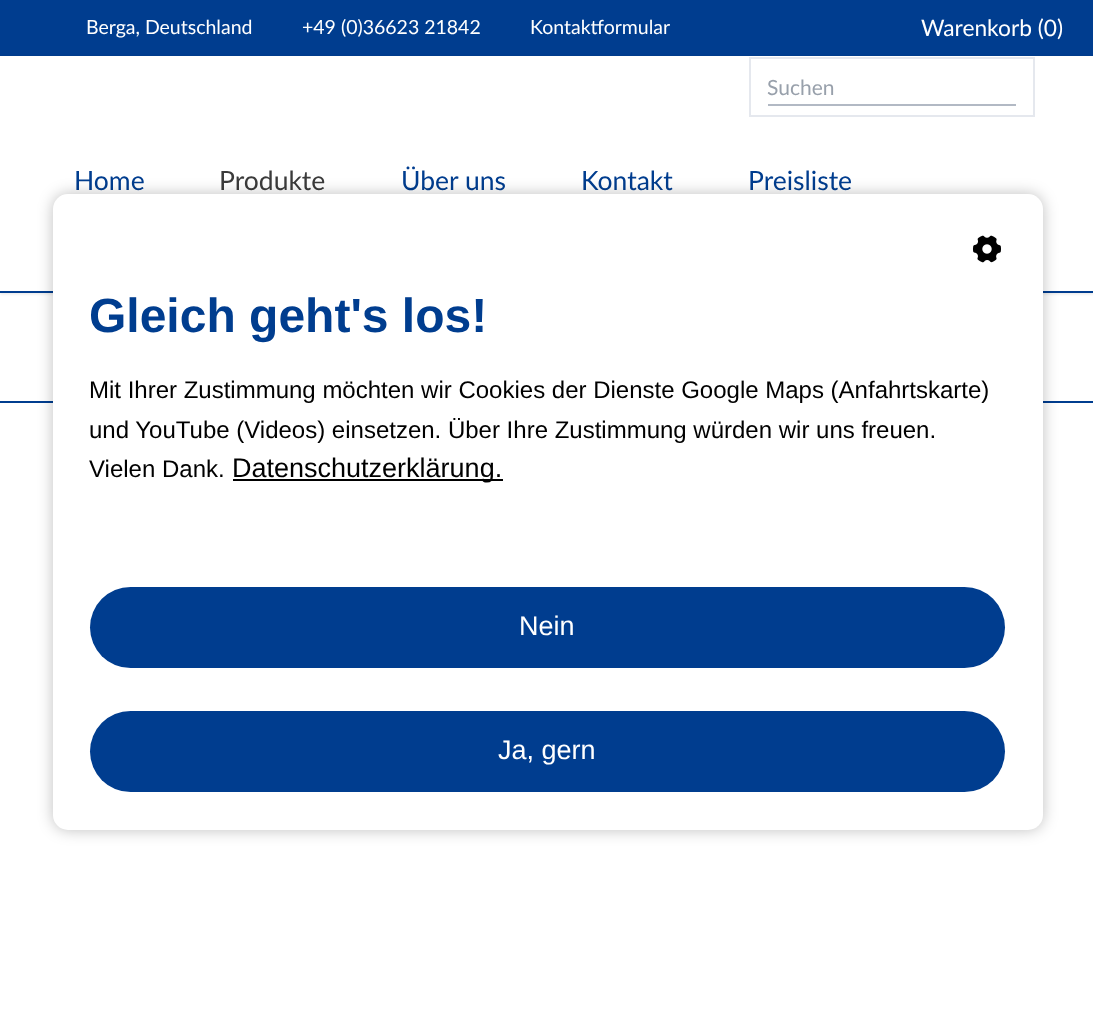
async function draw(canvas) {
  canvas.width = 1093
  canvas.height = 1023
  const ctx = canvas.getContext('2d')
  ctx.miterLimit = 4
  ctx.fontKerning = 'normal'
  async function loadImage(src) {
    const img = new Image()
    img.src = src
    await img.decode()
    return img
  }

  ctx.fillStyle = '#fff'
  ctx.fillRect(0, 0, 1093, 1023)
  ctx.fillStyle = '#003d8f'
  ctx.fillRect(0, 0, 1093, 56)
  ctx.font = '19.5px Lato'
  ctx.fillStyle = '#fff'
  ctx.fillText('Berga, Deutschland', 86, 34)
  ctx.fillText('+49 (0)36623 21842', 302, 34)
  ctx.fillText('Kontaktformular', 530, 34)
  ctx.font = '22.75px Lato'
  ctx.fillText('Warenkorb (0)', 921, 36)
  ctx.fillStyle = '#0000001a'
  ctx.filter = 'blur(1.5px)'
  ctx.beginPath()
  ctx.rect(0, 57, 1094, 237)
  ctx.fill()
  ctx.filter = 'none'
  ctx.fillStyle = '#fff'
  ctx.fillRect(0, 56, 1093, 235)
  ctx.fillStyle = '#003d8f'
  ctx.fillRect(0, 291, 1093, 2)
  ctx.strokeStyle = '#e5e8ee'
  ctx.lineWidth = 2
  ctx.strokeRect(750, 58, 284, 58)
  ctx.fillStyle = '#b2b9c4'
  ctx.fillRect(768, 104, 248, 2)
  ctx.font = '21px Lato'
  ctx.fillStyle = '#98a0ab'
  ctx.fillText('Suchen', 767, 95)
  ctx.font = '26.5px Lato'
  ctx.fillStyle = '#003d8f'
  ctx.fillText('Home', 74, 190)
  ctx.fillStyle = '#3b3b3b'
  ctx.fillText('Produkte', 219, 190)
  ctx.fillStyle = '#003d8f'
  ctx.fillText('Über uns', 401, 190)
  ctx.fillText('Kontakt', 581, 190)
  ctx.fillText('Preisliste', 748, 190)
  ctx.fillRect(0, 401, 1093, 2)
  ctx.fillStyle = '#00000040'
  ctx.filter = 'blur(7.5px)'
  ctx.beginPath()
  ctx.roundRect(53, 194, 990, 636, 15)
  ctx.fill()
  ctx.filter = 'none'
  ctx.fillStyle = '#fff'
  ctx.beginPath()
  ctx.roundRect(53, 194, 990, 636, 15)
  ctx.fill()
  ctx.drawImage(await loadImage('image0.png'), 972, 235, 29, 28)
  ctx.font = 'bold 48px Liberation Sans'
  ctx.fillStyle = '#003d8f'
  ctx.fillText('Gleich geht\'s los!', 89, 332)
  ctx.font = '24px Liberation Sans'
  ctx.fillStyle = '#000'
  ctx.fillText('Mit Ihrer Zustimmung möchten wir Cookies der Dienste Google Maps (Anfahrtskarte)', 89, 398)
  ctx.fillText('und YouTube (Videos) einsetzen. Über Ihre Zustimmung würden wir uns freuen.', 89, 438)
  ctx.fillText('Vielen Dank.', 89, 477)
  ctx.fillRect(233, 479, 270, 2)
  ctx.font = '27px Liberation Sans'
  ctx.fillText('Datenschutzerklärung.', 232, 477)
  ctx.fillStyle = '#003d8f'
  ctx.beginPath()
  ctx.roundRect(90, 587, 915, 81, 40.5)
  ctx.fill()
  ctx.fillStyle = '#fff'
  ctx.fillText('Nein', 519, 635)
  ctx.fillStyle = '#003d8f'
  ctx.beginPath()
  ctx.roundRect(90, 711, 915, 81, 40.5)
  ctx.fill()
  ctx.fillStyle = '#fff'
  ctx.fillText('Ja, gern', 498, 759)
}

draw(document.querySelector('canvas'))
